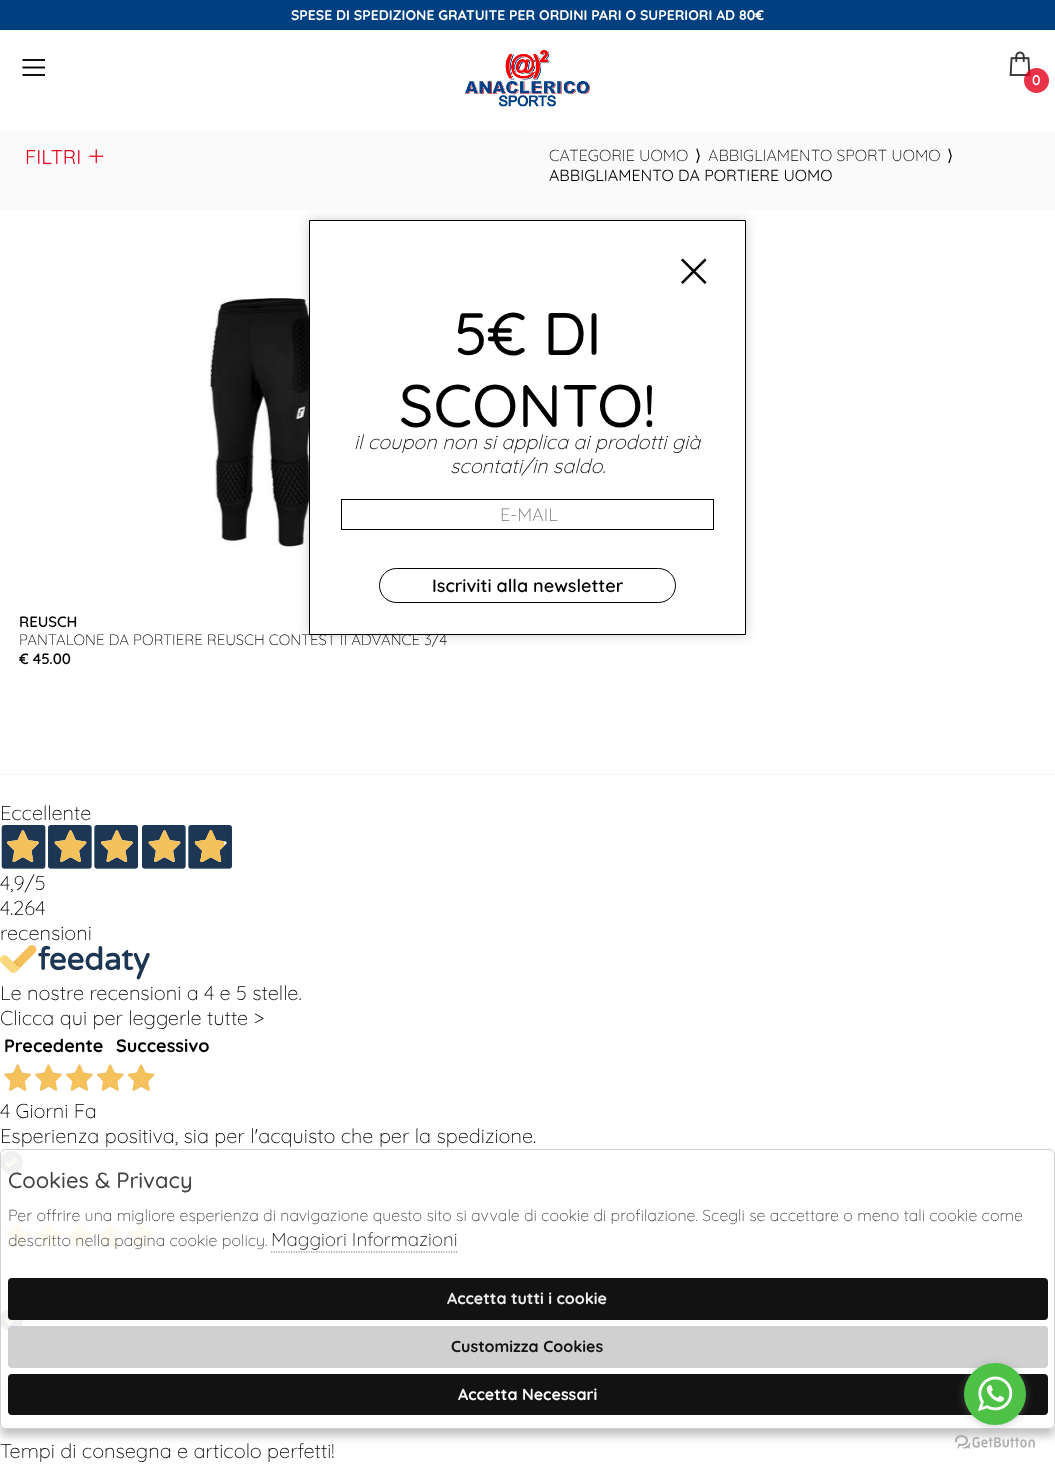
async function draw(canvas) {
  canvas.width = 1055
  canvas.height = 1466
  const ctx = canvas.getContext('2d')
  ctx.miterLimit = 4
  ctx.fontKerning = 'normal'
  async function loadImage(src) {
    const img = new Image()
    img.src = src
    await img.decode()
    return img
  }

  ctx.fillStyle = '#fff'
  ctx.fillRect(0, 0, 1055, 1466)
  ctx.fillStyle = '#004080'
  ctx.fillRect(0, 0, 1055, 30)
  ctx.font = 'bold 14px Quicksand'
  ctx.fillStyle = '#fff'
  ctx.fillText('SPESE DI SPEDIZIONE GRATUITE PER ORDINI PARI O SUPERIORI AD 80€', 291, 20)
  ctx.drawImage(await loadImage('image0.png'), 465, 50, 125, 57)
  ctx.drawImage(await loadImage('image1.png'), 22, 59, 23, 17)
  ctx.drawImage(await loadImage('image2.png'), 1009, 51, 22, 25)
  ctx.fillStyle = '#e2001acc'
  ctx.beginPath()
  ctx.arc(1036.5, 80.5, 12.5, 0, 2 * Math.PI)
  ctx.fill()
  ctx.font = '600 14px Quicksand'
  ctx.fillStyle = '#fff'
  ctx.fillText('0', 1032, 85)
  ctx.fillStyle = '#f4f5f7'
  ctx.fillRect(0, 774, 1055, 1)
  ctx.fillStyle = '#fafafa'
  ctx.fillRect(0, 131, 1055, 79)
  ctx.font = '20px Quicksand'
  ctx.fillStyle = '#e2001a'
  ctx.fillText('FILTRI', 25, 164)
  ctx.drawImage(await loadImage('image3.png'), 89, 149, 15, 15)
  ctx.fillStyle = '#fff'
  ctx.fillRect(528, 131, 527, 1)
  ctx.font = '300 16px Quicksand'
  ctx.fillStyle = '#000'
  ctx.fillText('CATEGORIE UOMO', 549, 161)
  ctx.font = '16px DejaVu Sans'
  ctx.fillText('⟩', 695, 161)
  ctx.font = '300 16px Quicksand'
  ctx.fillText('ABBIGLIAMENTO SPORT UOMO', 708, 161)
  ctx.font = '16px DejaVu Sans'
  ctx.fillText('⟩', 947, 161)
  ctx.font = '16px Quicksand'
  ctx.fillText('ABBIGLIAMENTO DA PORTIERE UOMO', 549, 181)
  ctx.drawImage(await loadImage('image4.png'), 209, 298, 100, 250)
  ctx.font = '600 15px Quicksand'
  ctx.fillText('REUSCH', 19, 627)
  ctx.font = '300 15px Quicksand'
  ctx.fillText('PANTALONE DA PORTIERE REUSCH CONTEST II ADVANCE 3/4', 19, 645)
  ctx.font = '600 15px Quicksand'
  ctx.fillText('€ 45.00', 19, 664)
  ctx.font = '300 20px Quicksand'
  ctx.fillText('Eccellente', 0, 820)
  ctx.drawImage(await loadImage('image5.png'), 1, 825, 231, 44)
  ctx.fillText('4,9/5', 0, 890)
  ctx.fillText('4.264', 0, 915)
  ctx.fillText('recensioni', 0, 940)
  ctx.drawImage(await loadImage('image6.png'), 0, 945, 150, 35)
  ctx.fillText('Le nostre recensioni a 4 e 5 stelle.', 0, 1000)
  ctx.fillText('Clicca qui per leggerle tutte >', 0, 1025)
  ctx.font = 'bold 18px Quicksand'
  ctx.fillText('Precedente', 4, 1052)
  ctx.fillText('Successivo', 116, 1052)
  ctx.drawImage(await loadImage('image7.png'), 4, 1064, 151, 27)
  ctx.font = '300 20px Quicksand'
  ctx.fillText('4 Giorni Fa', 0, 1118)
  ctx.fillText('Esperienza positiva, sia per l\'acquisto che per la spedizione.', 0, 1143)
  ctx.drawImage(await loadImage('image8.png'), 0, 1151, 23, 23)
  ctx.drawImage(await loadImage('image9.png'), 4, 1221, 151, 28)
  ctx.drawImage(await loadImage('image10.png'), 0, 1309, 23, 22)
  ctx.drawImage(await loadImage('image7.png'), 4, 1379, 151, 27)
  ctx.fillText('Tempi di consegna e articolo perfetti!', 0, 1458)
  ctx.fillStyle = '#00000033'
  ctx.filter = 'blur(6px)'
  ctx.beginPath()
  ctx.rect(309, 220, 437, 415)
  ctx.fill()
  ctx.filter = 'none'
  ctx.fillStyle = '#fff'
  ctx.beginPath()
  ctx.rect(309.5, 220.5, 436, 414)
  ctx.fill()
  ctx.strokeStyle = '#000'
  ctx.stroke()
  ctx.drawImage(await loadImage('image11.png'), 681, 258, 26, 26)
  ctx.font = '500 60px Quicksand'
  ctx.fillStyle = '#000'
  ctx.fillText('5€ DI', 454, 355)
  ctx.fillText('SCONTO!', 399, 427)
  ctx.font = 'italic 300 20px Quicksand'
  ctx.fillText('il coupon non si applica ai prodotti già', 354, 449)
  ctx.fillText('scontati/in saldo.', 450, 473)
  ctx.strokeRect(341.5, 499.5, 372, 30)
  ctx.font = '300 18px Quicksand'
  ctx.fillStyle = '#757575'
  ctx.fillText('E-MAIL', 500, 521)
  ctx.beginPath()
  ctx.roundRect(379.5, 568.5, 296, 34, 17)
  ctx.stroke()
  ctx.font = '600 18px Quicksand'
  ctx.fillStyle = '#000'
  ctx.fillText('Iscriviti alla newsletter', 432, 592)
  ctx.save()
  ctx.beginPath()
  ctx.moveTo(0, 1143)
  ctx.lineTo(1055, 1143)
  ctx.lineTo(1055, 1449)
  ctx.lineTo(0, 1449)
  ctx.closePath()
  ctx.moveTo(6, 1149)
  ctx.lineTo(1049, 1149)
  ctx.bezierCurveTo(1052.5, 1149, 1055, 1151.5, 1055, 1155)
  ctx.lineTo(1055, 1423)
  ctx.bezierCurveTo(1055, 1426.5, 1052.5, 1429, 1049, 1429)
  ctx.lineTo(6, 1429)
  ctx.bezierCurveTo(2.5, 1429, 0, 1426.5, 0, 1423)
  ctx.lineTo(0, 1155)
  ctx.bezierCurveTo(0, 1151.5, 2.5, 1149, 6, 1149)
  ctx.closePath()
  ctx.clip('evenodd')
  ctx.fillStyle = '#0000003b'
  ctx.filter = 'blur(4px)'
  ctx.beginPath()
  ctx.roundRect(0, 1156, 1055, 280, 6)
  ctx.fill()
  ctx.filter = 'none'
  ctx.restore()
  ctx.fillStyle = '#ffffffed'
  ctx.beginPath()
  ctx.roundRect(0, 1149, 1055, 280, 6)
  ctx.fill()
  ctx.beginPath()
  ctx.roundRect(0.5, 1149.5, 1054, 279, 5.5)
  ctx.strokeStyle = '#cccccced'
  ctx.stroke()
  ctx.font = '500 22px Quicksand'
  ctx.fillStyle = '#414141'
  ctx.fillText('Cookies & Privacy', 8, 1188)
  ctx.font = '300 16px Quicksand'
  ctx.fillText('Per offrire una migliore esperienza di navigazione questo sito si avvale di cookie di profilazione. Scegli se accettare o meno tali cookie come', 8, 1221)
  ctx.fillText('descritto nella pagina cookie policy.', 8, 1246)
  ctx.font = '300 18.75px Quicksand'
  ctx.fillStyle = '#121212'
  ctx.fillText('Maggiori Informazioni', 271, 1246)
  ctx.beginPath()
  ctx.moveTo(271, 1252)
  ctx.lineTo(457.5, 1252)
  ctx.strokeStyle = '#747474'
  ctx.lineWidth = 1.2
  ctx.setLineDash([1.25, 1.25])
  ctx.stroke()
  ctx.fillStyle = '#000000ed'
  ctx.beginPath()
  ctx.roundRect(8, 1278, 1040, 42, 4)
  ctx.fill()
  ctx.font = 'bold 16px Quicksand'
  ctx.fillStyle = '#eee'
  ctx.fillText('Accetta tutti i cookie', 447, 1304)
  ctx.fillStyle = '#cccccced'
  ctx.beginPath()
  ctx.roundRect(8, 1326, 1040, 42, 4)
  ctx.fill()
  ctx.fillStyle = '#121212'
  ctx.fillText('Customizza Cookies', 451, 1352)
  ctx.fillStyle = '#000000ed'
  ctx.beginPath()
  ctx.roundRect(8, 1374, 1040, 41, 4)
  ctx.fill()
  ctx.fillStyle = '#fff'
  ctx.fillText('Accetta Necessari', 458, 1400)
  ctx.drawImage(await loadImage('image13.png'), 955, 1435, 80, 14)
  ctx.fillStyle = '#88888866'
  ctx.filter = 'blur(4.5px)'
  ctx.beginPath()
  ctx.roundRect(964, 1364, 62, 62, 31)
  ctx.fill()
  ctx.filter = 'none'
  ctx.fillStyle = '#4dc247'
  ctx.beginPath()
  ctx.arc(995, 1394, 31, 0, 2 * Math.PI)
  ctx.fill()
  ctx.drawImage(await loadImage('image12.png'), 977, 1376, 36, 36)
}

draw(document.querySelector('canvas'))
